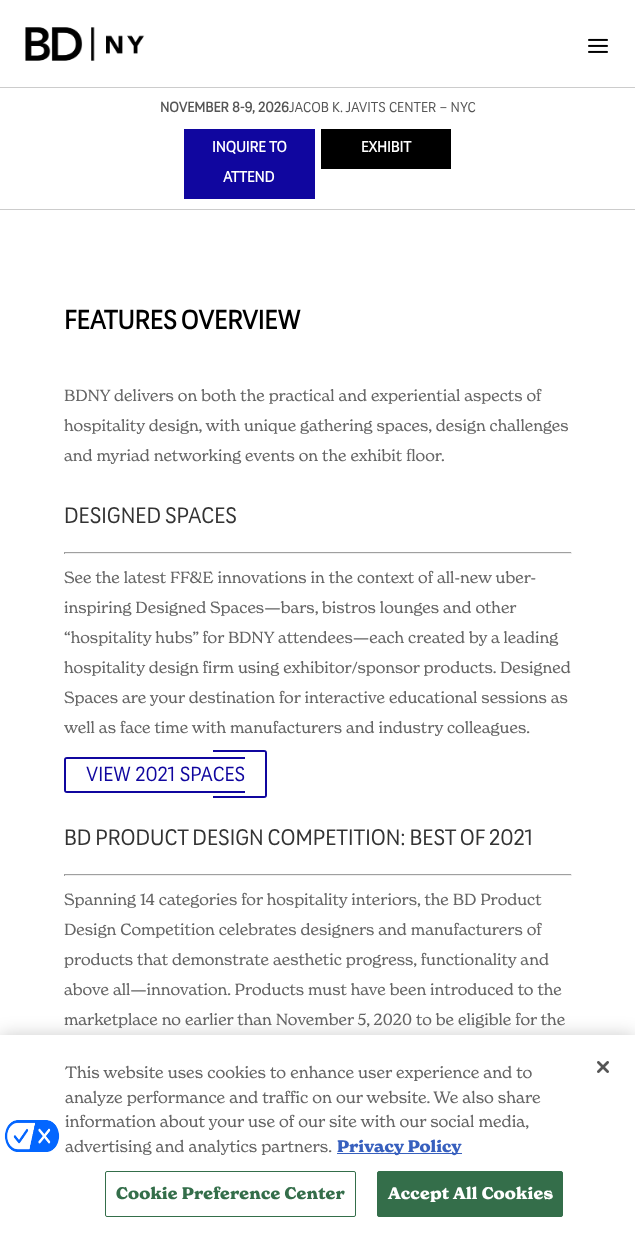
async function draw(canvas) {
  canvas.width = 635
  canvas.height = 1237
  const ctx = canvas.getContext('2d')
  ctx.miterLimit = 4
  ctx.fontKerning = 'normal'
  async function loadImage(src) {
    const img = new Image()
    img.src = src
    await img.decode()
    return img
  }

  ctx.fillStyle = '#fff'
  ctx.fillRect(0, 0, 635, 1237)
  ctx.fillStyle = '#ccc'
  ctx.fillRect(0, 209, 635, 1)
  ctx.fillRect(0, 87, 635, 1)
  ctx.drawImage(await loadImage('image0.png'), 25, 27, 120, 34)
  ctx.drawImage(await loadImage('image1.png'), 588, 38, 20, 15)
  ctx.font = 'bold 14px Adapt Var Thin'
  ctx.fillStyle = '#555'
  ctx.fillText('NOVEMBER 8-9, 2026', 160, 112)
  ctx.font = '14px Adapt Var Thin'
  ctx.fillText('JACOB K. JAVITS CENTER – NYC', 289, 112)
  ctx.fillStyle = '#10069f'
  ctx.fillRect(184, 129, 131, 70)
  ctx.font = 'bold 15px Adapt Var Thin'
  ctx.fillStyle = '#fff'
  ctx.fillText('INQUIRE TO', 212, 152)
  ctx.fillText('ATTEND', 223, 182)
  ctx.fillStyle = '#000'
  ctx.fillRect(321, 129, 130, 40)
  ctx.fillStyle = '#fff'
  ctx.fillText('EXHIBIT', 361, 152)
  ctx.wordSpacing = '-2px'
  ctx.font = 'bold 26px Adapt Var Thin'
  ctx.fillStyle = '#000'
  ctx.fillText('FEATURES OVERVIEW', 64, 329)
  ctx.wordSpacing = '0px'
  ctx.font = '16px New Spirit'
  ctx.fillStyle = '#666'
  ctx.fillText('BDNY delivers on both the practical and experiential aspects of', 64, 401)
  ctx.fillText('hospitality design, with unique gathering spaces, design challenges', 64, 431)
  ctx.fillText('and myriad networking events on the exhibit floor.', 64, 461)
  ctx.wordSpacing = '-1.25px'
  ctx.font = '22px Adapt Var Thin'
  ctx.fillStyle = '#333'
  ctx.fillText('DESIGNED SPACES', 64, 523)
  ctx.fillStyle = '#9f9f9f'
  ctx.fillRect(64, 552, 508, 1)
  ctx.fillStyle = '#eee'
  ctx.fillRect(571, 552, 1, 2)
  ctx.fillRect(64, 553, 508, 1)
  ctx.fillStyle = '#9f9f9f'
  ctx.fillRect(64, 552, 1, 2)
  ctx.wordSpacing = '0px'
  ctx.font = '16px New Spirit'
  ctx.fillStyle = '#666'
  ctx.fillText('See the latest FF&E innovations in the context of all-new uber-', 64, 583)
  ctx.fillText('inspiring Designed Spaces—bars, bistros lounges and other', 64, 613)
  ctx.fillText('“hospitality hubs” for BDNY attendees—each created by a leading', 64, 643)
  ctx.fillText('hospitality design firm using exhibitor/sponsor products. Designed', 64, 673)
  ctx.fillText('Spaces are your destination for interactive educational sessions as', 64, 703)
  ctx.fillText('well as face time with manufacturers and industry colleagues.', 64, 733)
  ctx.fillStyle = '#10069f'
  ctx.beginPath()
  ctx.moveTo(67, 757)
  ctx.lineTo(245, 757)
  ctx.lineTo(245, 793)
  ctx.lineTo(67, 793)
  ctx.bezierCurveTo(65, 793, 64, 792, 64, 790)
  ctx.lineTo(64, 760)
  ctx.bezierCurveTo(64, 758, 65, 757, 67, 757)
  ctx.closePath()
  ctx.moveTo(67, 759)
  ctx.lineTo(245, 759)
  ctx.lineTo(245, 791)
  ctx.lineTo(67, 791)
  ctx.bezierCurveTo(66, 791, 66, 791, 66, 790)
  ctx.lineTo(66, 760)
  ctx.bezierCurveTo(66, 759, 66, 759, 67, 759)
  ctx.closePath()
  ctx.fill('evenodd')
  ctx.beginPath()
  ctx.moveTo(213, 750)
  ctx.lineTo(264, 750)
  ctx.bezierCurveTo(266, 750, 267, 751, 267, 753)
  ctx.lineTo(267, 795)
  ctx.bezierCurveTo(267, 797, 266, 798, 264, 798)
  ctx.lineTo(213, 798)
  ctx.closePath()
  ctx.moveTo(213, 752)
  ctx.lineTo(264, 752)
  ctx.bezierCurveTo(265, 752, 265, 752, 265, 753)
  ctx.lineTo(265, 795)
  ctx.bezierCurveTo(265, 796, 265, 796, 264, 796)
  ctx.lineTo(213, 796)
  ctx.closePath()
  ctx.fill('evenodd')
  ctx.font = '20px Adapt'
  ctx.fillText('VIEW 2021 SPACES', 86, 781)
  ctx.wordSpacing = '-1.25px'
  ctx.font = '22px Adapt Var Thin'
  ctx.fillStyle = '#333'
  ctx.fillText('BD PRODUCT DESIGN COMPETITION: BEST OF 2021', 64, 845)
  ctx.fillStyle = '#9f9f9f'
  ctx.fillRect(64, 874, 508, 1)
  ctx.fillStyle = '#eee'
  ctx.fillRect(571, 874, 1, 2)
  ctx.fillRect(64, 875, 508, 1)
  ctx.fillStyle = '#9f9f9f'
  ctx.fillRect(64, 874, 1, 2)
  ctx.wordSpacing = '0px'
  ctx.font = '16px New Spirit'
  ctx.fillStyle = '#666'
  ctx.fillText('Spanning 14 categories for hospitality interiors, the BD Product', 64, 905)
  ctx.fillText('Design Competition celebrates designers and manufacturers of', 64, 935)
  ctx.fillText('products that demonstrate aesthetic progress, functionality and', 64, 965)
  ctx.fillText('above all—innovation. Products must have been introduced to the', 64, 995)
  ctx.fillText('marketplace no earlier than November 5, 2020 to be eligible for the', 64, 1025)
  ctx.fillStyle = '#00000033'
  ctx.filter = 'blur(9px)'
  ctx.beginPath()
  ctx.rect(0, 1035, 635, 202)
  ctx.fill()
  ctx.filter = 'none'
  ctx.fillStyle = '#fff'
  ctx.fillRect(0, 1035, 635, 202)
  ctx.drawImage(await loadImage('image2.png'), 4, 1120, 56, 32)
  ctx.font = '16.25px New Spirit'
  ctx.fillStyle = '#666'
  ctx.fillText('This website uses cookies to enhance user experience and to', 65, 1078)
  ctx.fillText('analyze performance and traffic on our website. We also share', 65, 1103)
  ctx.fillText('information about your use of our site with our social media,', 65, 1127)
  ctx.fillText('advertising and analytics partners.', 65, 1152)
  ctx.fillStyle = '#3860be'
  ctx.fillRect(337, 1153, 125, 1)
  ctx.font = 'bold 16.25px New Spirit'
  ctx.fillText('Privacy Policy', 337, 1152)
  ctx.beginPath()
  ctx.roundRect(105.5, 1171.5, 250, 45, 1.5)
  ctx.strokeStyle = '#346e4a'
  ctx.stroke()
  ctx.letterSpacing = '0.2px'
  ctx.fillStyle = '#346e4a'
  ctx.fillText('Cookie Preference Center', 116, 1199)
  ctx.beginPath()
  ctx.roundRect(377.5, 1171.5, 185, 45, 1.5)
  ctx.fill()
  ctx.stroke()
  ctx.fillStyle = '#fff'
  ctx.fillText('Accept All Cookies', 388, 1199)
  ctx.drawImage(await loadImage('image3.png'), 597, 1061, 12, 12)
}

draw(document.querySelector('canvas'))
